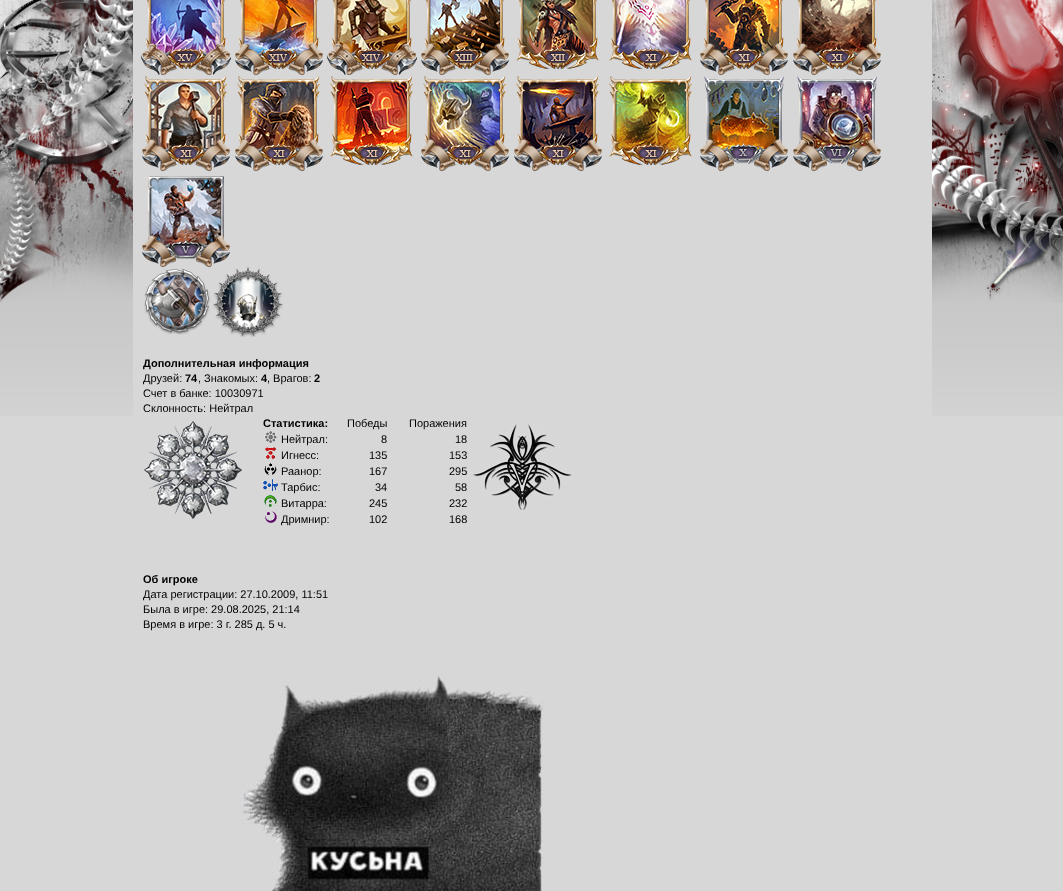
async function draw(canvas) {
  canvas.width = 1063
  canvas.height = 891
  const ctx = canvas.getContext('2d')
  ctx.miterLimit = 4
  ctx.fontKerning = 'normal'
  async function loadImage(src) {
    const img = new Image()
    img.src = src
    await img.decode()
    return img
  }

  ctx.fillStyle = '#d7d7d7'
  ctx.fillRect(0, 0, 1063, 891)
  ctx.drawImage(await loadImage('image0.png'), 0, 302, 1063, 114)
  ctx.drawImage(await loadImage('image1.png'), 0, 0, 133, 302)
  ctx.drawImage(await loadImage('image2.png'), 932, 0, 131, 303)
  ctx.fillRect(133, 302, 799, 114)
  ctx.drawImage(await loadImage('image4.png'), 151, 0, 70, 54)
  ctx.drawImage(await loadImage('image3.png'), 144, 0, 83, 70)
  ctx.drawImage(await loadImage('image5.png'), 141, 43, 90, 33)
  ctx.drawImage(await loadImage('image7.png'), 244, 0, 70, 54)
  ctx.drawImage(await loadImage('image6.png'), 237, 0, 83, 70)
  ctx.drawImage(await loadImage('image8.png'), 235, 43, 88, 33)
  ctx.drawImage(await loadImage('image10.png'), 337, 0, 70, 54)
  ctx.drawImage(await loadImage('image9.png'), 330, 0, 83, 70)
  ctx.drawImage(await loadImage('image11.png'), 327, 43, 90, 33)
  ctx.drawImage(await loadImage('image13.png'), 430, 0, 70, 54)
  ctx.drawImage(await loadImage('image12.png'), 423, 0, 83, 70)
  ctx.drawImage(await loadImage('image14.png'), 421, 43, 88, 33)
  ctx.drawImage(await loadImage('image16.png'), 523, 0, 70, 55)
  ctx.drawImage(await loadImage('image15.png'), 516, 0, 83, 70)
  ctx.drawImage(await loadImage('image18.png'), 616, 0, 70, 55)
  ctx.drawImage(await loadImage('image17.png'), 609, 0, 83, 70)
  ctx.drawImage(await loadImage('image20.png'), 709, 0, 70, 54)
  ctx.drawImage(await loadImage('image19.png'), 702, 0, 83, 70)
  ctx.drawImage(await loadImage('image21.png'), 700, 43, 88, 33)
  ctx.drawImage(await loadImage('image23.png'), 802, 0, 70, 54)
  ctx.drawImage(await loadImage('image22.png'), 795, 0, 83, 70)
  ctx.drawImage(await loadImage('image24.png'), 793, 43, 88, 33)
  ctx.drawImage(await loadImage('image26.png'), 151, 82, 70, 68)
  ctx.drawImage(await loadImage('image25.png'), 144, 75, 83, 91)
  ctx.drawImage(await loadImage('image27.png'), 142, 139, 88, 33)
  ctx.drawImage(await loadImage('image29.png'), 244, 82, 70, 68)
  ctx.drawImage(await loadImage('image28.png'), 237, 75, 83, 91)
  ctx.drawImage(await loadImage('image30.png'), 235, 139, 88, 33)
  ctx.drawImage(await loadImage('image32.png'), 337, 82, 70, 69)
  ctx.drawImage(await loadImage('image31.png'), 330, 75, 83, 91)
  ctx.drawImage(await loadImage('image34.png'), 430, 82, 70, 68)
  ctx.drawImage(await loadImage('image33.png'), 423, 75, 83, 91)
  ctx.drawImage(await loadImage('image35.png'), 421, 139, 88, 33)
  ctx.drawImage(await loadImage('image37.png'), 523, 82, 70, 68)
  ctx.drawImage(await loadImage('image36.png'), 516, 75, 83, 91)
  ctx.drawImage(await loadImage('image38.png'), 514, 139, 88, 33)
  ctx.drawImage(await loadImage('image40.png'), 616, 82, 70, 69)
  ctx.drawImage(await loadImage('image39.png'), 609, 75, 83, 91)
  ctx.drawImage(await loadImage('image42.png'), 709, 82, 70, 68)
  ctx.drawImage(await loadImage('image41.png'), 704, 76, 80, 88)
  ctx.drawImage(await loadImage('image43.png'), 700, 139, 88, 33)
  ctx.drawImage(await loadImage('image45.png'), 802, 82, 70, 68)
  ctx.drawImage(await loadImage('image44.png'), 797, 76, 80, 88)
  ctx.drawImage(await loadImage('image46.png'), 793, 139, 88, 33)
  ctx.drawImage(await loadImage('image48.png'), 151, 179, 70, 68)
  ctx.drawImage(await loadImage('image47.png'), 148, 176, 76, 84)
  ctx.drawImage(await loadImage('image51.png'), 213, 267, 70, 70)
  ctx.drawImage(await loadImage('image49.png'), 142, 235, 88, 33)
  ctx.drawImage(await loadImage('image50.png'), 144, 268, 67, 67)
  ctx.font = 'bold 11px Liberation Sans'
  ctx.fillStyle = '#000'
  ctx.fillText('Дополнительная информация', 143, 367)
  ctx.font = '11px Liberation Sans'
  ctx.fillText('Друзей:', 143, 382)
  ctx.font = 'bold 11px Liberation Sans'
  ctx.fillText('74', 185, 382)
  ctx.font = '11px Liberation Sans'
  ctx.fillText(', Знакомых:', 198, 382)
  ctx.font = 'bold 11px Liberation Sans'
  ctx.fillText('4', 261, 382)
  ctx.font = '11px Liberation Sans'
  ctx.fillText(', Врагов:', 267, 382)
  ctx.font = 'bold 11px Liberation Sans'
  ctx.fillText('2', 314, 382)
  ctx.font = '11px Liberation Sans'
  ctx.fillText('Счет в банке: 10030971', 143, 397)
  ctx.fillText('Склонность: Нейтрал', 143, 412)
  ctx.drawImage(await loadImage('image52.png'), 144, 421, 98, 98)
  ctx.font = 'bold 11px Liberation Sans'
  ctx.fillText('Статистика:', 263, 427)
  ctx.font = '11px Liberation Sans'
  ctx.fillText('Победы', 347, 427)
  ctx.fillText('Поражения', 409, 427)
  ctx.drawImage(await loadImage('image53.png'), 473, 420, 99, 93)
  ctx.drawImage(await loadImage('image54.png'), 264, 431, 13, 12)
  ctx.fillText('Нейтрал:', 281, 443)
  ctx.fillText('8', 381, 443)
  ctx.fillText('18', 455, 443)
  ctx.drawImage(await loadImage('image55.png'), 265, 447, 11, 12)
  ctx.fillText('Игнесс:', 281, 459)
  ctx.fillText('135', 369, 459)
  ctx.fillText('153', 449, 459)
  ctx.drawImage(await loadImage('image56.png'), 264, 463, 13, 12)
  ctx.fillText('Раанор:', 281, 475)
  ctx.fillText('167', 369, 475)
  ctx.fillText('295', 449, 475)
  ctx.drawImage(await loadImage('image57.png'), 263, 479, 15, 12)
  ctx.fillText('Тарбис:', 281, 491)
  ctx.fillText('34', 375, 491)
  ctx.fillText('58', 455, 491)
  ctx.drawImage(await loadImage('image58.png'), 264, 495, 13, 12)
  ctx.fillText('Витарра:', 281, 507)
  ctx.fillText('245', 369, 507)
  ctx.fillText('232', 449, 507)
  ctx.drawImage(await loadImage('image59.png'), 265, 511, 12, 12)
  ctx.fillText('Дримнир:', 281, 523)
  ctx.fillText('102', 369, 523)
  ctx.fillText('168', 449, 523)
  ctx.font = 'bold 11px Liberation Sans'
  ctx.fillText('Об игроке', 143, 583)
  ctx.font = '11px Liberation Sans'
  ctx.fillText('Дата регистрации: 27.10.2009, 11:51', 143, 598)
  ctx.fillText('Былa в игре: 29.08.2025, 21:14', 143, 613)
  ctx.fillText('Время в игре: 3 г. 285 д. 5 ч.', 143, 628)
  ctx.drawImage(await loadImage('image60.png'), 242, 675, 301, 216)
}

draw(document.querySelector('canvas'))
